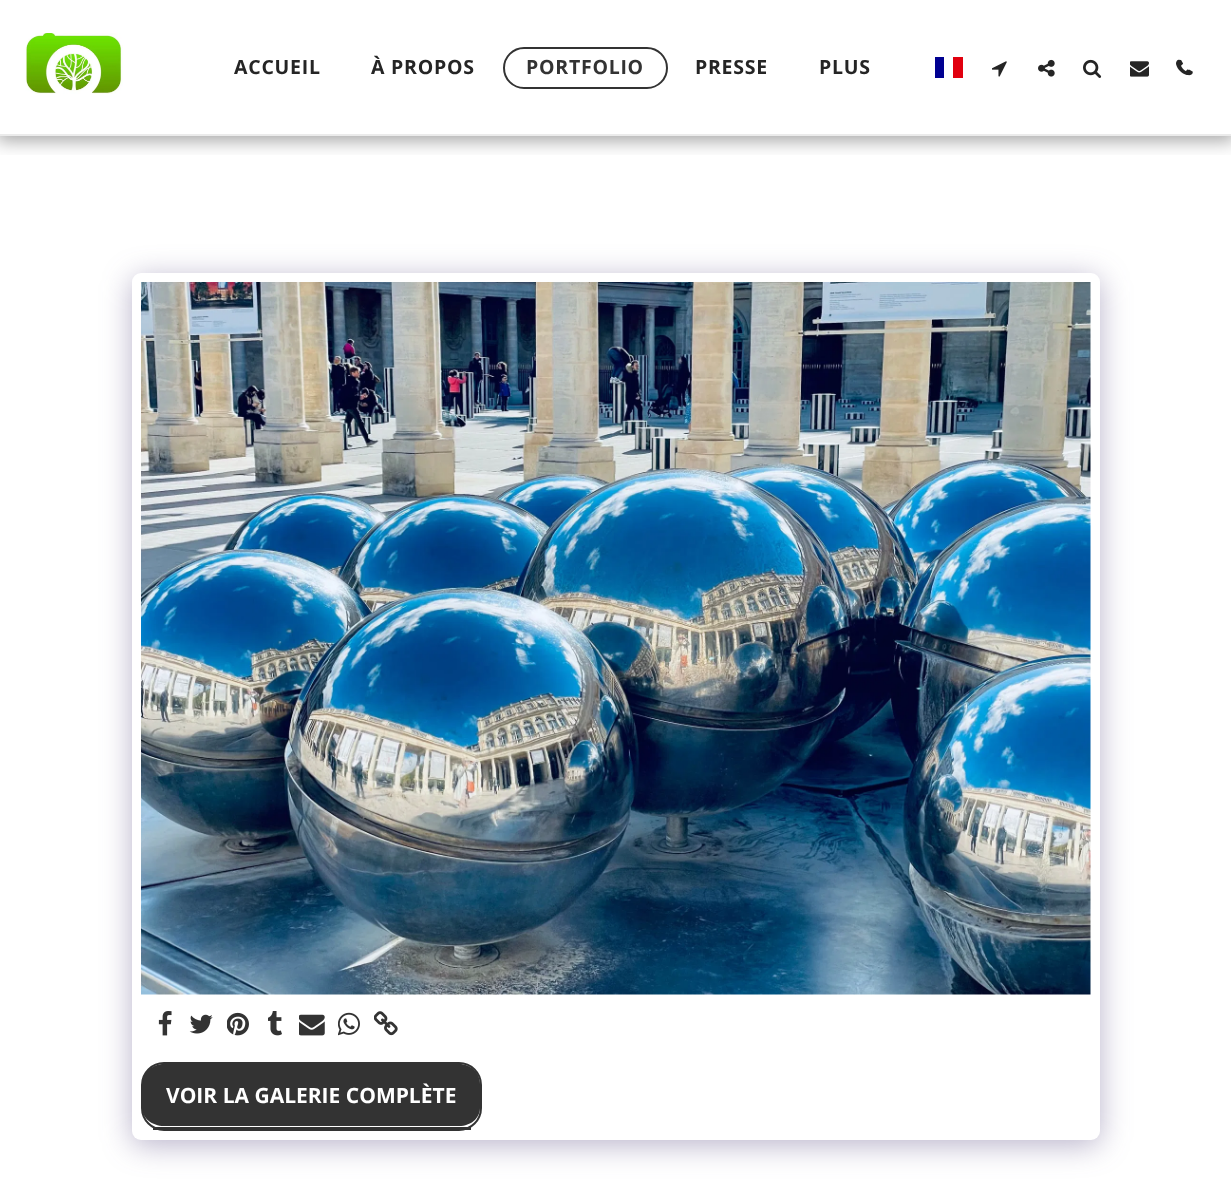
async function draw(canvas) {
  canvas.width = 1231
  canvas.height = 1186
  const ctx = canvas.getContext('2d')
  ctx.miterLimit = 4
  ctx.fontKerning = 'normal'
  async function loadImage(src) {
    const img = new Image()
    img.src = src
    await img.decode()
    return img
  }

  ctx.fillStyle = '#fff'
  ctx.fillRect(0, 0, 1231, 1186)
  ctx.save()
  ctx.beginPath()
  ctx.rect(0, 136, 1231, 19)
  ctx.clip()
  ctx.fillStyle = '#00000059'
  ctx.filter = 'blur(9px)'
  ctx.beginPath()
  ctx.rect(-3, 0, 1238, 141)
  ctx.fill()
  ctx.filter = 'none'
  ctx.restore()
  ctx.fillStyle = '#ebebeb'
  ctx.fillRect(0, 134, 1231, 2)
  ctx.drawImage(await loadImage('image0.png'), 25, 33, 98, 61)
  ctx.letterSpacing = '0.75px'
  ctx.font = 'bold 19.5px Open Sans'
  ctx.fillStyle = '#252525'
  ctx.fillText('ACCUEIL', 234, 74)
  ctx.fillText('À PROPOS', 371, 74)
  ctx.beginPath()
  ctx.roundRect(504, 48, 163, 40, 20)
  ctx.strokeStyle = '#333'
  ctx.lineWidth = 2
  ctx.stroke()
  ctx.fillStyle = '#333'
  ctx.fillText('PORTFOLIO', 526, 74)
  ctx.fillStyle = '#252525'
  ctx.fillText('PRESSE', 695, 74)
  ctx.fillText('PLUS', 819, 74)
  ctx.fillStyle = '#000091'
  ctx.fillRect(935, 57, 9, 21)
  ctx.fillStyle = '#e1000f'
  ctx.fillRect(953, 57, 10, 21)
  ctx.drawImage(await loadImage('image1.png'), 992, 61, 15, 16)
  ctx.drawImage(await loadImage('image2.png'), 1038, 59, 17, 18)
  ctx.drawImage(await loadImage('image3.png'), 1083, 59, 19, 19)
  ctx.drawImage(await loadImage('image4.png'), 1130, 61, 19, 16)
  ctx.drawImage(await loadImage('image5.png'), 1179, 59, 14, 17)
  ctx.drawImage(await loadImage('image6.png'), 1176, 59, 15, 16)
  ctx.fillStyle = '#4d3f7a66'
  ctx.filter = 'blur(15px)'
  ctx.beginPath()
  ctx.roundRect(132, 278, 968, 867, 9)
  ctx.fill()
  ctx.filter = 'none'
  ctx.fillStyle = '#fff'
  ctx.beginPath()
  ctx.roundRect(132, 273, 968, 867, 9)
  ctx.fill()
  ctx.drawImage(await loadImage('image7.png'), 141, 282, 950, 713)
  ctx.drawImage(await loadImage('image8.png'), 158, 1011, 14, 25)
  ctx.drawImage(await loadImage('image9.png'), 189, 1014, 24, 20)
  ctx.drawImage(await loadImage('image10.png'), 227, 1012, 22, 24)
  ctx.drawImage(await loadImage('image11.png'), 268, 1011, 14, 25)
  ctx.drawImage(await loadImage('image12.png'), 299, 1014, 26, 22)
  ctx.drawImage(await loadImage('image13.png'), 338, 1012, 22, 24)
  ctx.drawImage(await loadImage('image14.png'), 374, 1011, 24, 25)
  ctx.fillStyle = '#333'
  ctx.beginPath()
  ctx.moveTo(164, 1064)
  ctx.lineTo(459, 1064)
  ctx.bezierCurveTo(471, 1064, 480, 1073, 480, 1084)
  ctx.lineTo(480, 1108)
  ctx.bezierCurveTo(480, 1118, 471, 1126, 459, 1126)
  ctx.lineTo(164, 1126)
  ctx.bezierCurveTo(152, 1126, 142, 1118, 142, 1108)
  ctx.lineTo(142, 1084)
  ctx.bezierCurveTo(142, 1073, 152, 1064, 164, 1064)
  ctx.closePath()
  ctx.fill()
  ctx.beginPath()
  ctx.roundRect(142, 1063, 339, 67, 22)
  ctx.stroke()
  ctx.fillRect(153, 1127, 318, 3)
  ctx.letterSpacing = '0px'
  ctx.font = 'bold 21px Open Sans'
  ctx.fillStyle = '#fff'
  ctx.fillText('VOIR LA GALERIE COMPLÈTE', 166, 1103)
}

draw(document.querySelector('canvas'))
